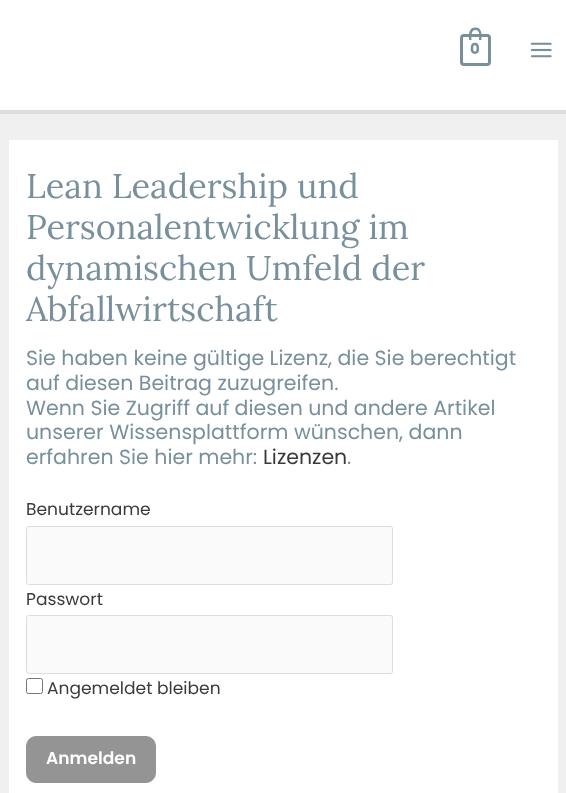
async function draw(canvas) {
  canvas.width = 566
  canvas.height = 793
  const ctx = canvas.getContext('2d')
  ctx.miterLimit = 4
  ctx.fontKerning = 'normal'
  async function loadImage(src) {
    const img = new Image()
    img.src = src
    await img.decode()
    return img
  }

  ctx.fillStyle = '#f0f0f0'
  ctx.fillRect(0, 0, 566, 793)
  ctx.fillStyle = '#fff'
  ctx.fillRect(0, 0, 566, 110)
  ctx.fillStyle = '#ddd'
  ctx.fillRect(0, 110, 566, 4)
  ctx.beginPath()
  ctx.roundRect(461.5, 35.5, 28, 29, 2.5)
  ctx.strokeStyle = '#78909c'
  ctx.lineWidth = 3
  ctx.stroke()
  ctx.fillStyle = '#78909c'
  ctx.beginPath()
  ctx.moveTo(475.5, 27.5)
  ctx.bezierCurveTo(482.5, 27.5, 481.5, 35, 481.5, 40)
  ctx.lineTo(469, 40)
  ctx.bezierCurveTo(469, 35, 468, 27.5, 475.5, 27.5)
  ctx.closePath()
  ctx.moveTo(475.5, 30)
  ctx.bezierCurveTo(480.5, 30, 479, 37, 479, 40)
  ctx.lineTo(471.5, 40)
  ctx.bezierCurveTo(471.5, 37, 470.5, 30, 475.5, 30)
  ctx.closePath()
  ctx.fill('evenodd')
  ctx.font = 'bold 15px Poppins'
  ctx.fillText('0', 470, 54)
  ctx.drawImage(await loadImage('image0.png'), 530, 42, 22, 16)
  ctx.fillStyle = '#fff'
  ctx.fillRect(9, 140, 549, 653)
  ctx.font = '34.25px Lora'
  ctx.fillStyle = '#78909c'
  ctx.fillText('Lean Leadership und', 26, 198)
  ctx.fillText('Personalentwicklung im', 26, 239)
  ctx.fillText('dynamischen Umfeld der', 26, 280)
  ctx.fillText('Abfallwirtschaft', 26, 321)
  ctx.font = '20.5px Poppins'
  ctx.fillText('Sie haben keine gültige Lizenz, die Sie berechtigt', 26, 365)
  ctx.fillText('auf diesen Beitrag zuzugreifen.', 26, 390)
  ctx.fillText('Wenn Sie Zugriff auf diesen und andere Artikel', 26, 415)
  ctx.fillText('unserer Wissensplattform wünschen, dann', 26, 439)
  ctx.fillText('erfahren Sie hier mehr:', 26, 464)
  ctx.fillStyle = '#3a3a3a'
  ctx.fillText('Lizenzen', 263, 464)
  ctx.fillStyle = '#78909c'
  ctx.fillText('.', 347, 464)
  ctx.font = '17.1px Poppins'
  ctx.fillStyle = '#3a3a3a'
  ctx.fillText('Benutzername', 26, 515)
  ctx.fillStyle = '#fafafa'
  ctx.beginPath()
  ctx.roundRect(26.5, 526.5, 366, 58, 2)
  ctx.fill()
  ctx.strokeStyle = '#ddd'
  ctx.lineWidth = 1
  ctx.stroke()
  ctx.fillStyle = '#3a3a3a'
  ctx.fillText('Passwort', 26, 605)
  ctx.fillStyle = '#fafafa'
  ctx.beginPath()
  ctx.roundRect(26.5, 615.5, 366, 58, 2)
  ctx.fill()
  ctx.stroke()
  ctx.beginPath()
  ctx.roundRect(26.5, 678.5, 16, 15, 2)
  ctx.strokeStyle = '#767676'
  ctx.stroke()
  ctx.fillStyle = '#3a3a3a'
  ctx.fillText('Angemeldet bleiben', 47, 694)
  ctx.fillStyle = '#949494'
  ctx.beginPath()
  ctx.roundRect(26.5, 736.5, 129, 46, 9.5)
  ctx.fill()
  ctx.strokeStyle = '#949494'
  ctx.stroke()
  ctx.font = '600 17.1px Poppins'
  ctx.fillStyle = '#fff'
  ctx.fillText('Anmelden', 46, 764)
}

draw(document.querySelector('canvas'))
